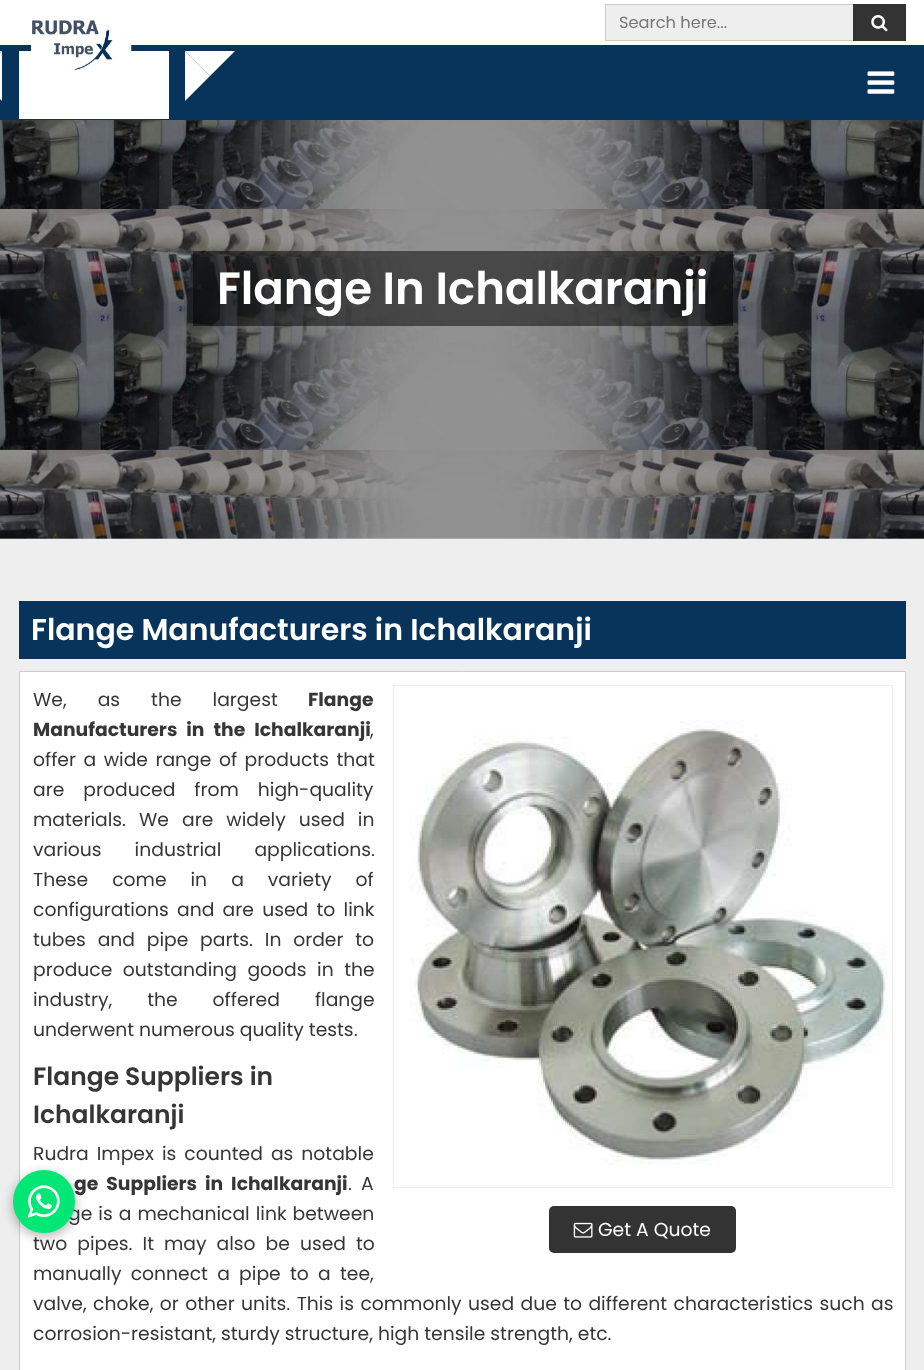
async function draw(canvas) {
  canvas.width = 924
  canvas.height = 1370
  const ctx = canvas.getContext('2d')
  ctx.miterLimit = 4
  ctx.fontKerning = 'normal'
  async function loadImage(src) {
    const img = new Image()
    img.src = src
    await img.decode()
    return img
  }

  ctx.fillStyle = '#fff'
  ctx.fillRect(0, 0, 924, 1370)
  ctx.fillStyle = '#eee'
  ctx.fillRect(606, 5, 247, 35)
  ctx.strokeStyle = '#ccc'
  ctx.strokeRect(605.5, 4.5, 300, 36)
  ctx.font = '16.25px Poppins'
  ctx.fillStyle = '#757575'
  ctx.fillText('Search here...', 619, 28)
  ctx.fillStyle = '#333'
  ctx.fillRect(853, 4, 53, 37)
  ctx.drawImage(await loadImage('image0.png'), 871, 15, 17, 17)
  ctx.fillStyle = '#08345b'
  ctx.fillRect(0, 45, 924, 75)
  ctx.fillStyle = '#fff'
  ctx.fillRect(19, 51, 150, 68)
  ctx.fillRect(31, 45, 100, 6)
  ctx.drawImage(await loadImage('image1.png'), 32, 20, 100, 50)
  ctx.beginPath()
  ctx.moveTo(-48, 51)
  ctx.lineTo(2, 51)
  ctx.lineTo(-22, 76)
  ctx.closePath()
  ctx.fill()
  ctx.beginPath()
  ctx.moveTo(2, 51)
  ctx.lineTo(2, 101)
  ctx.lineTo(-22, 76)
  ctx.closePath()
  ctx.fill()
  ctx.beginPath()
  ctx.moveTo(185, 51)
  ctx.lineTo(235, 51)
  ctx.lineTo(210, 76)
  ctx.closePath()
  ctx.fill()
  ctx.beginPath()
  ctx.moveTo(185, 101)
  ctx.lineTo(185, 51)
  ctx.lineTo(210, 76)
  ctx.closePath()
  ctx.fill()
  ctx.drawImage(await loadImage('image2.png'), 867, 71, 28, 23)
  ctx.drawImage(await loadImage('image3.png'), 0, 120, 924, 419)
  ctx.fillStyle = '#00000080'
  ctx.fillRect(193, 251, 540, 75)
  ctx.font = '600 45px Poppins'
  ctx.fillStyle = '#fff'
  ctx.fillText('Flange In Ichalkaranji', 217, 304)
  ctx.fillStyle = '#eee'
  ctx.fillRect(0, 539, 924, 831)
  ctx.fillStyle = '#08345b'
  ctx.fillRect(19, 601, 887, 58)
  ctx.font = '600 30px Poppins'
  ctx.fillStyle = '#fff'
  ctx.fillText('Flange Manufacturers in Ichalkaranji', 31, 640)
  ctx.beginPath()
  ctx.rect(19.5, 671.5, 886, 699)
  ctx.fill()
  ctx.stroke()
  ctx.wordSpacing = '26px'
  ctx.font = '18.75px Poppins'
  ctx.fillStyle = '#363636'
  ctx.fillText('We, as the largest', 33, 706)
  ctx.wordSpacing = '0px'
  ctx.font = 'bold 18.75px Poppins'
  ctx.fillText('Flange', 308, 706)
  ctx.wordSpacing = '5px'
  ctx.fillText('Manufacturers in the Ichalkaranji', 33, 736)
  ctx.wordSpacing = '0px'
  ctx.font = '18.75px Poppins'
  ctx.fillText(',', 370, 736)
  ctx.wordSpacing = '2.5px'
  ctx.fillText('offer a wide range of products that', 33, 766)
  ctx.wordSpacing = '14px'
  ctx.fillText('are produced from high-quality', 33, 796)
  ctx.wordSpacing = '8px'
  ctx.fillText('materials. We are widely used in', 33, 826)
  ctx.wordSpacing = '28px'
  ctx.fillText('various industrial applications.', 33, 856)
  ctx.wordSpacing = '19px'
  ctx.fillText('These come in a variety of', 33, 886)
  ctx.wordSpacing = '3.25px'
  ctx.fillText('configurations and are used to link', 33, 916)
  ctx.wordSpacing = '6.75px'
  ctx.fillText('tubes and pipe parts. In order to', 33, 946)
  ctx.wordSpacing = '5.5px'
  ctx.fillText('produce outstanding goods in the', 33, 976)
  ctx.wordSpacing = '30px'
  ctx.fillText('industry, the offered flange', 33, 1006)
  ctx.wordSpacing = '0px'
  ctx.fillText('underwent numerous quality tests.', 33, 1036)
  ctx.font = '600 25px Poppins'
  ctx.fillText('Flange Suppliers in', 33, 1085)
  ctx.fillText('Ichalkaranji', 33, 1123)
  ctx.wordSpacing = '3px'
  ctx.font = '18.75px Poppins'
  ctx.fillText('Rudra Impex is counted as notable', 33, 1160)
  ctx.wordSpacing = '4px'
  ctx.font = 'bold 18.75px Poppins'
  ctx.fillText('ge Suppliers in Ichalkaranji', 74, 1190)
  ctx.font = '18.75px Poppins'
  ctx.fillText('. A', 348, 1190)
  ctx.wordSpacing = '1px'
  ctx.fillText('ge is a mechanical link between', 68, 1220)
  ctx.wordSpacing = '5px'
  ctx.fillText('two pipes. It may also be used to', 33, 1250)
  ctx.wordSpacing = '4.25px'
  ctx.fillText('manually connect a pipe to a tee,', 33, 1280)
  ctx.wordSpacing = '1.4px'
  ctx.fillText('valve, choke, or other units. This is commonly used due to different characteristics such as', 33, 1310)
  ctx.wordSpacing = '0px'
  ctx.fillText('corrosion-resistant, sturdy structure, high tensile strength, etc.', 33, 1340)
  ctx.strokeStyle = '#eee'
  ctx.strokeRect(393.5, 685.5, 499, 502)
  ctx.drawImage(await loadImage('image4.png'), 410, 720, 478, 445)
  ctx.fillStyle = '#333'
  ctx.beginPath()
  ctx.roundRect(549, 1206, 187, 47, 5)
  ctx.fill()
  ctx.drawImage(await loadImage('image5.png'), 573, 1222, 20, 16)
  ctx.fillStyle = '#fff'
  ctx.fillText('Get A Quote', 598, 1236)
  ctx.fillStyle = '#00000029'
  ctx.filter = 'blur(6px)'
  ctx.beginPath()
  ctx.roundRect(13, 1174, 62, 62, 31)
  ctx.fill()
  ctx.filter = 'none'
  ctx.filter = 'blur(6px)'
  ctx.beginPath()
  ctx.roundRect(13, 1174, 62, 62, 31)
  ctx.fill()
  ctx.filter = 'none'
  ctx.fillStyle = '#01e675'
  ctx.beginPath()
  ctx.roundRect(13, 1170, 62, 63, 31)
  ctx.fill()
  ctx.drawImage(await loadImage('image6.png'), 27, 1185, 33, 33)
}

draw(document.querySelector('canvas'))
